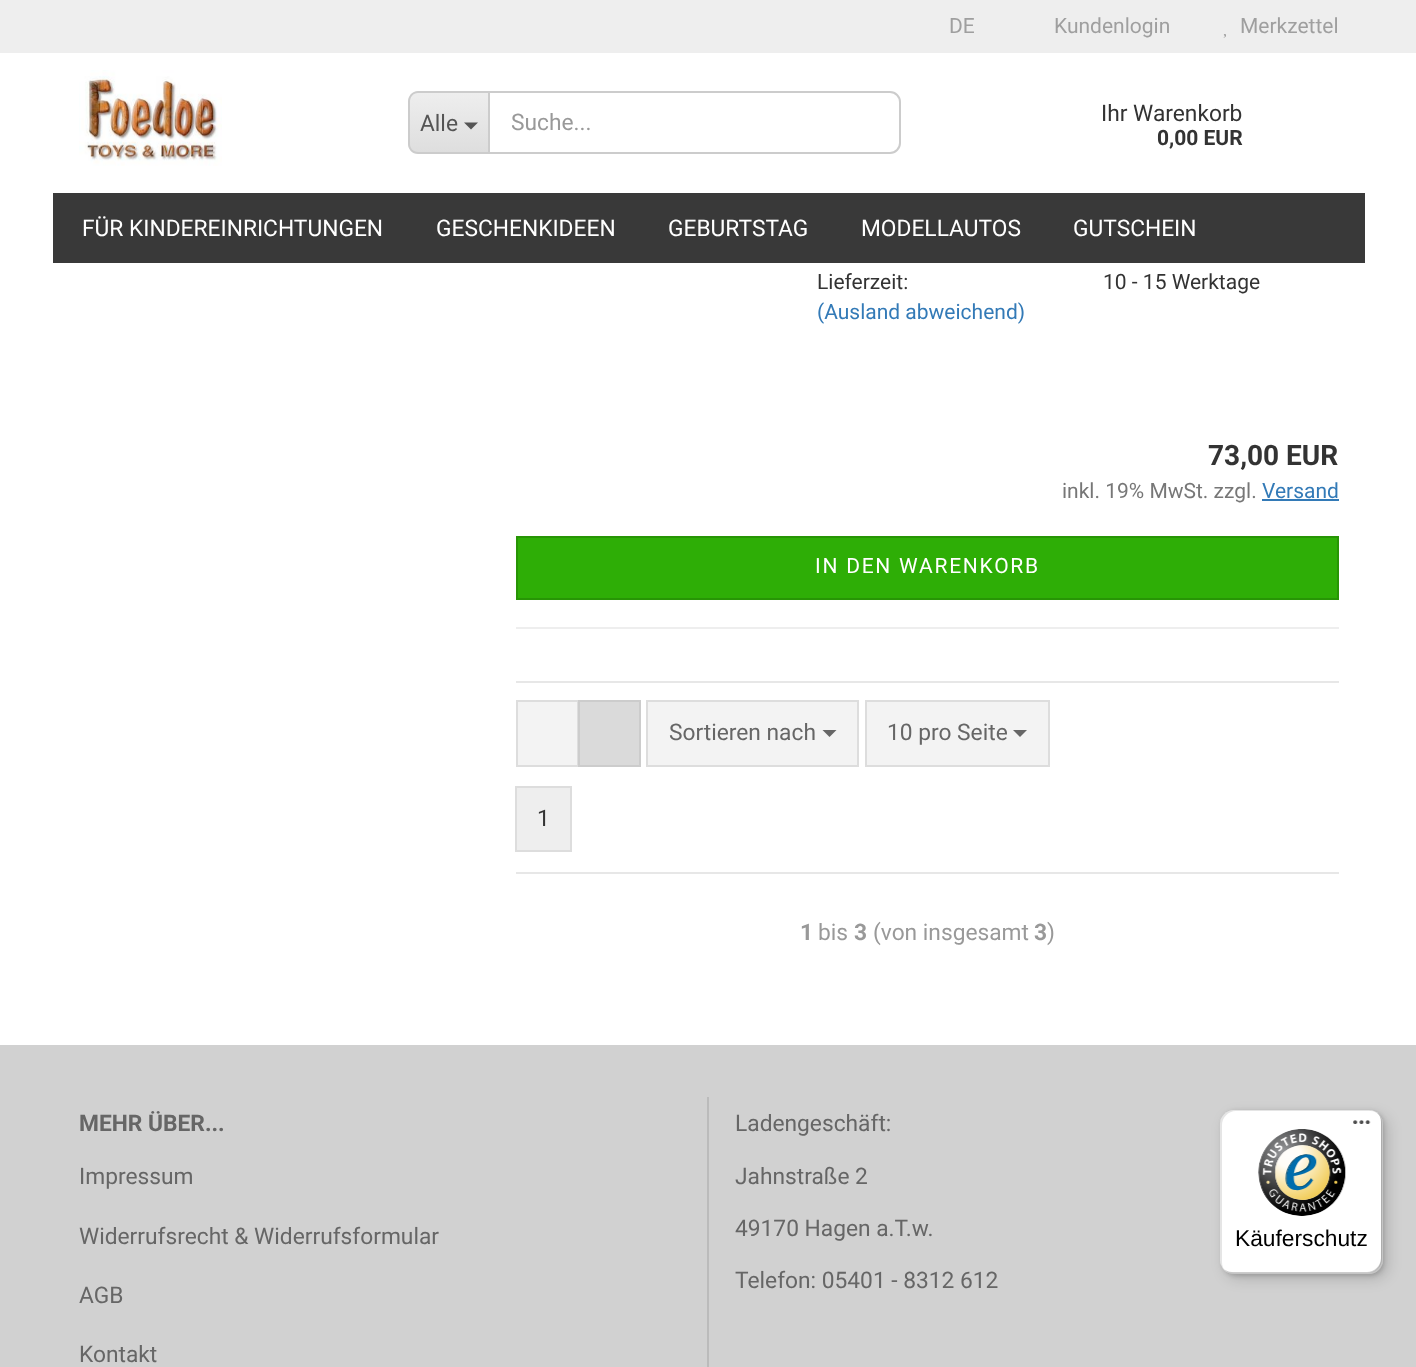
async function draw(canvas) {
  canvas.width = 1416
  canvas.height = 1367
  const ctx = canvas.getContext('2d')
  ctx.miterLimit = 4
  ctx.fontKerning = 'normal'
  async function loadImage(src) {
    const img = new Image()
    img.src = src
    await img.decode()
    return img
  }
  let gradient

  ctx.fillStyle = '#fff'
  ctx.fillRect(0, 0, 1416, 1367)
  ctx.fillStyle = '#eee'
  ctx.fillRect(0, 0, 1416, 53)
  ctx.font = '21px Roboto'
  ctx.fillStyle = '#9f9f9f'
  ctx.fillText('DE', 949, 33)
  ctx.fillText('Kundenlogin', 1054, 33)
  ctx.fillText('Merkzettel', 1240, 33)
  ctx.drawImage(await loadImage('image0.png'), 1223, 34, 3, 4)
  ctx.drawImage(await loadImage('image1.png'), 79, 70, 143, 96)
  ctx.save()
  ctx.beginPath()
  ctx.roundRect(408, 91, 80, 63, [11, 0, 0, 11])
  ctx.clip()
  gradient = ctx.createLinearGradient(449, 93, 449, 152)
  gradient.addColorStop(0, '#eee')
  gradient.addColorStop(1, '#dedede')
  ctx.fillStyle = gradient
  ctx.fillRect(408, 93, 80, 59)
  ctx.restore()
  ctx.fillStyle = '#ccc'
  ctx.beginPath()
  ctx.moveTo(418, 91)
  ctx.lineTo(488, 91)
  ctx.lineTo(488, 154)
  ctx.lineTo(418, 154)
  ctx.bezierCurveTo(412, 154, 408, 149, 408, 144)
  ctx.lineTo(408, 102)
  ctx.bezierCurveTo(408, 96, 412, 91, 418, 91)
  ctx.closePath()
  ctx.moveTo(418, 93)
  ctx.lineTo(488, 93)
  ctx.lineTo(488, 152)
  ctx.lineTo(418, 152)
  ctx.bezierCurveTo(413, 152, 410, 148, 410, 144)
  ctx.lineTo(410, 102)
  ctx.bezierCurveTo(410, 97, 413, 93, 418, 93)
  ctx.closePath()
  ctx.fill('evenodd')
  ctx.font = '22.75px Roboto'
  ctx.fillStyle = '#555'
  ctx.fillText('Alle', 420, 131)
  ctx.beginPath()
  ctx.moveTo(464, 122.5)
  ctx.lineTo(478, 122.5)
  ctx.lineTo(471, 129.5)
  ctx.closePath()
  ctx.fill()
  ctx.beginPath()
  ctx.roundRect(489, 92, 411, 61, [0, 10, 10, 0])
  ctx.strokeStyle = '#ccc'
  ctx.lineWidth = 2
  ctx.stroke()
  ctx.fillStyle = '#999'
  ctx.fillText('Suche...', 511, 130)
  ctx.fillStyle = '#333'
  ctx.fillText('Ihr Warenkorb', 1101, 121)
  ctx.font = 'bold 21px Roboto'
  ctx.fillText('0,00 EUR', 1157, 145)
  ctx.fillStyle = '#393939'
  ctx.fillRect(53, 193, 1312, 70)
  ctx.font = '22.75px Roboto'
  ctx.fillStyle = '#fff'
  ctx.fillText('FÜR KINDEREINRICHTUNGEN', 82, 236)
  ctx.fillText('GESCHENKIDEEN', 436, 236)
  ctx.fillText('GEBURTSTAG', 668, 236)
  ctx.fillText('MODELLAUTOS', 861, 236)
  ctx.fillText('GUTSCHEIN', 1073, 236)
  ctx.fillStyle = '#eee'
  ctx.fillRect(516, 627, 823, 2)
  ctx.font = '21px Roboto'
  ctx.fillStyle = '#333'
  ctx.fillText('Lieferzeit:', 817, 289)
  ctx.fillText('10 - 15 Werktage', 1103, 289)
  ctx.fillStyle = '#337ab7'
  ctx.fillText('(Ausland abweichend)', 817, 319)
  ctx.font = 'bold 28px Roboto'
  ctx.fillStyle = '#333'
  ctx.fillText('73,00 EUR', 1208, 465)
  ctx.font = '21px Roboto'
  ctx.fillStyle = '#777'
  ctx.fillText('inkl. 19% MwSt. zzgl.', 1062, 498)
  ctx.fillStyle = '#337ab7'
  ctx.fillText('Versand', 1262, 498)
  ctx.fillRect(1262, 499, 77, 2)
  ctx.fillStyle = '#2eae06'
  ctx.beginPath()
  ctx.rect(517, 537, 821, 62)
  ctx.fill()
  ctx.strokeStyle = '#279505'
  ctx.stroke()
  ctx.letterSpacing = '1.75px'
  ctx.fillStyle = '#fff'
  ctx.fillText('IN DEN WARENKORB', 815, 573)
  ctx.fillStyle = '#e7e7e7'
  ctx.fillRect(516, 681, 823, 2)
  ctx.fillRect(516, 872, 823, 2)
  ctx.fillStyle = '#f3f3f3'
  ctx.beginPath()
  ctx.rect(517, 701, 61, 65)
  ctx.fill()
  ctx.strokeStyle = '#ddd'
  ctx.stroke()
  ctx.fillStyle = '#dadada'
  ctx.beginPath()
  ctx.rect(579, 701, 61, 65)
  ctx.fill()
  ctx.strokeStyle = '#ccc'
  ctx.stroke()
  ctx.fillStyle = '#f3f3f3'
  ctx.beginPath()
  ctx.rect(647, 701, 211, 65)
  ctx.fill()
  ctx.strokeStyle = '#ddd'
  ctx.stroke()
  ctx.letterSpacing = '0px'
  ctx.font = '22.75px Roboto'
  ctx.fillStyle = '#666'
  ctx.fillText('Sortieren nach', 669, 740)
  ctx.beginPath()
  ctx.moveTo(822.5, 730)
  ctx.lineTo(836.5, 730)
  ctx.lineTo(829.5, 737)
  ctx.closePath()
  ctx.fill()
  ctx.fillStyle = '#f3f3f3'
  ctx.beginPath()
  ctx.rect(866, 701, 183, 65)
  ctx.fill()
  ctx.stroke()
  ctx.fillStyle = '#666'
  ctx.fillText('10 pro Seite', 887, 740)
  ctx.beginPath()
  ctx.moveTo(1013, 730)
  ctx.lineTo(1027, 730)
  ctx.lineTo(1020, 737)
  ctx.closePath()
  ctx.fill()
  ctx.fillStyle = '#eee'
  ctx.beginPath()
  ctx.rect(516, 787, 55, 64)
  ctx.fill()
  ctx.stroke()
  ctx.fillStyle = '#333'
  ctx.fillText('1', 537, 826)
  ctx.font = 'bold 22.75px Roboto'
  ctx.fillStyle = '#999'
  ctx.fillText('1', 800, 940)
  ctx.font = '22.75px Roboto'
  ctx.fillText('bis', 818, 940)
  ctx.font = 'bold 22.75px Roboto'
  ctx.fillText('3', 854, 940)
  ctx.font = '22.75px Roboto'
  ctx.fillText('(von insgesamt', 873, 940)
  ctx.font = 'bold 22.75px Roboto'
  ctx.fillText('3', 1034, 940)
  ctx.font = '22.75px Roboto'
  ctx.fillText(')', 1047, 940)
  ctx.fillStyle = '#d1d1d1'
  ctx.fillRect(0, 1045, 1416, 322)
  ctx.fillStyle = '#bbb'
  ctx.fillRect(707, 1097, 2, 270)
  ctx.font = 'bold 22.75px Roboto'
  ctx.fillStyle = '#666'
  ctx.fillText('MEHR ÜBER...', 79, 1131)
  ctx.font = '22.75px Roboto'
  ctx.fillText('Impressum', 79, 1184)
  ctx.fillText('Widerrufsrecht & Widerrufsformular', 79, 1244)
  ctx.fillText('AGB', 79, 1303)
  ctx.fillText('Kontakt', 79, 1362)
  ctx.fillText('Ladengeschäft:', 735, 1131)
  ctx.fillText('Jahnstraße 2', 735, 1184)
  ctx.fillText('49170 Hagen a.T.w.', 735, 1236)
  ctx.fillText('Telefon: 05401 - 8312 612', 735, 1288)
  ctx.fillStyle = '#00000026'
  ctx.filter = 'blur(7px)'
  ctx.beginPath()
  ctx.roundRect(1225, 1115, 163, 164, 14)
  ctx.fill()
  ctx.filter = 'none'
  ctx.filter = 'blur(2px)'
  ctx.beginPath()
  ctx.roundRect(1222, 1111, 162, 165, 14)
  ctx.fill()
  ctx.filter = 'none'
  ctx.fillStyle = '#fff'
  ctx.beginPath()
  ctx.roundRect(1220, 1110, 163, 164, 14)
  ctx.fill()
  ctx.fillStyle = '#0000001a'
  ctx.beginPath()
  ctx.moveTo(1236, 1111)
  ctx.lineTo(1370, 1111)
  ctx.bezierCurveTo(1374, 1111, 1378, 1113, 1380, 1116)
  ctx.bezierCurveTo(1378, 1112, 1374, 1110, 1369, 1110)
  ctx.lineTo(1234, 1110)
  ctx.bezierCurveTo(1226, 1110, 1220, 1116, 1220, 1124)
  ctx.lineTo(1220, 1260)
  ctx.bezierCurveTo(1220, 1265, 1222, 1269, 1226, 1271)
  ctx.bezierCurveTo(1223, 1269, 1222, 1265, 1222, 1262)
  ctx.lineTo(1222, 1125)
  ctx.bezierCurveTo(1222, 1118, 1228, 1111, 1236, 1111)
  ctx.closePath()
  ctx.fill()
  ctx.fillStyle = '#00000033'
  ctx.beginPath()
  ctx.moveTo(1224, 1269)
  ctx.bezierCurveTo(1226, 1272, 1230, 1274, 1234, 1274)
  ctx.lineTo(1369, 1274)
  ctx.bezierCurveTo(1377, 1274, 1383, 1268, 1383, 1260)
  ctx.lineTo(1383, 1124)
  ctx.bezierCurveTo(1383, 1119, 1381, 1115, 1377, 1113)
  ctx.bezierCurveTo(1380, 1115, 1381, 1118, 1381, 1122)
  ctx.lineTo(1381, 1258)
  ctx.bezierCurveTo(1381, 1266, 1374, 1272, 1367, 1272)
  ctx.lineTo(1232, 1272)
  ctx.bezierCurveTo(1229, 1272, 1226, 1271, 1224, 1269)
  ctx.closePath()
  ctx.fill()
  ctx.fillStyle = '#32323233'
  ctx.beginPath()
  ctx.moveTo(1225, 1270)
  ctx.bezierCurveTo(1227, 1273, 1230, 1274, 1234, 1274)
  ctx.lineTo(1369, 1274)
  ctx.bezierCurveTo(1377, 1274, 1383, 1268, 1383, 1260)
  ctx.lineTo(1383, 1124)
  ctx.bezierCurveTo(1383, 1119, 1381, 1115, 1377, 1113)
  ctx.bezierCurveTo(1380, 1115, 1381, 1119, 1381, 1122)
  ctx.lineTo(1381, 1259)
  ctx.bezierCurveTo(1381, 1267, 1375, 1273, 1367, 1273)
  ctx.lineTo(1233, 1273)
  ctx.bezierCurveTo(1230, 1273, 1227, 1272, 1225, 1270)
  ctx.closePath()
  ctx.fill()
  ctx.fillStyle = '#ffffff4d'
  ctx.beginPath()
  ctx.moveTo(1225, 1270)
  ctx.bezierCurveTo(1227, 1273, 1230, 1274, 1234, 1274)
  ctx.lineTo(1369, 1274)
  ctx.bezierCurveTo(1377, 1274, 1383, 1268, 1383, 1260)
  ctx.lineTo(1383, 1124)
  ctx.bezierCurveTo(1383, 1119, 1381, 1115, 1377, 1113)
  ctx.bezierCurveTo(1380, 1115, 1382, 1119, 1382, 1123)
  ctx.lineTo(1382, 1259)
  ctx.bezierCurveTo(1382, 1267, 1375, 1273, 1368, 1273)
  ctx.lineTo(1233, 1273)
  ctx.bezierCurveTo(1230, 1273, 1227, 1272, 1225, 1270)
  ctx.closePath()
  ctx.fill()
  ctx.drawImage(await loadImage('image2.png'), 1353, 1120, 18, 4)
  ctx.drawImage(await loadImage('image3.png'), 1258, 1129, 88, 87)
  ctx.font = '22.75px Liberation Sans'
  ctx.fillStyle = '#000'
  ctx.fillText('Käuferschutz', 1235, 1246)
}

draw(document.querySelector('canvas'))
